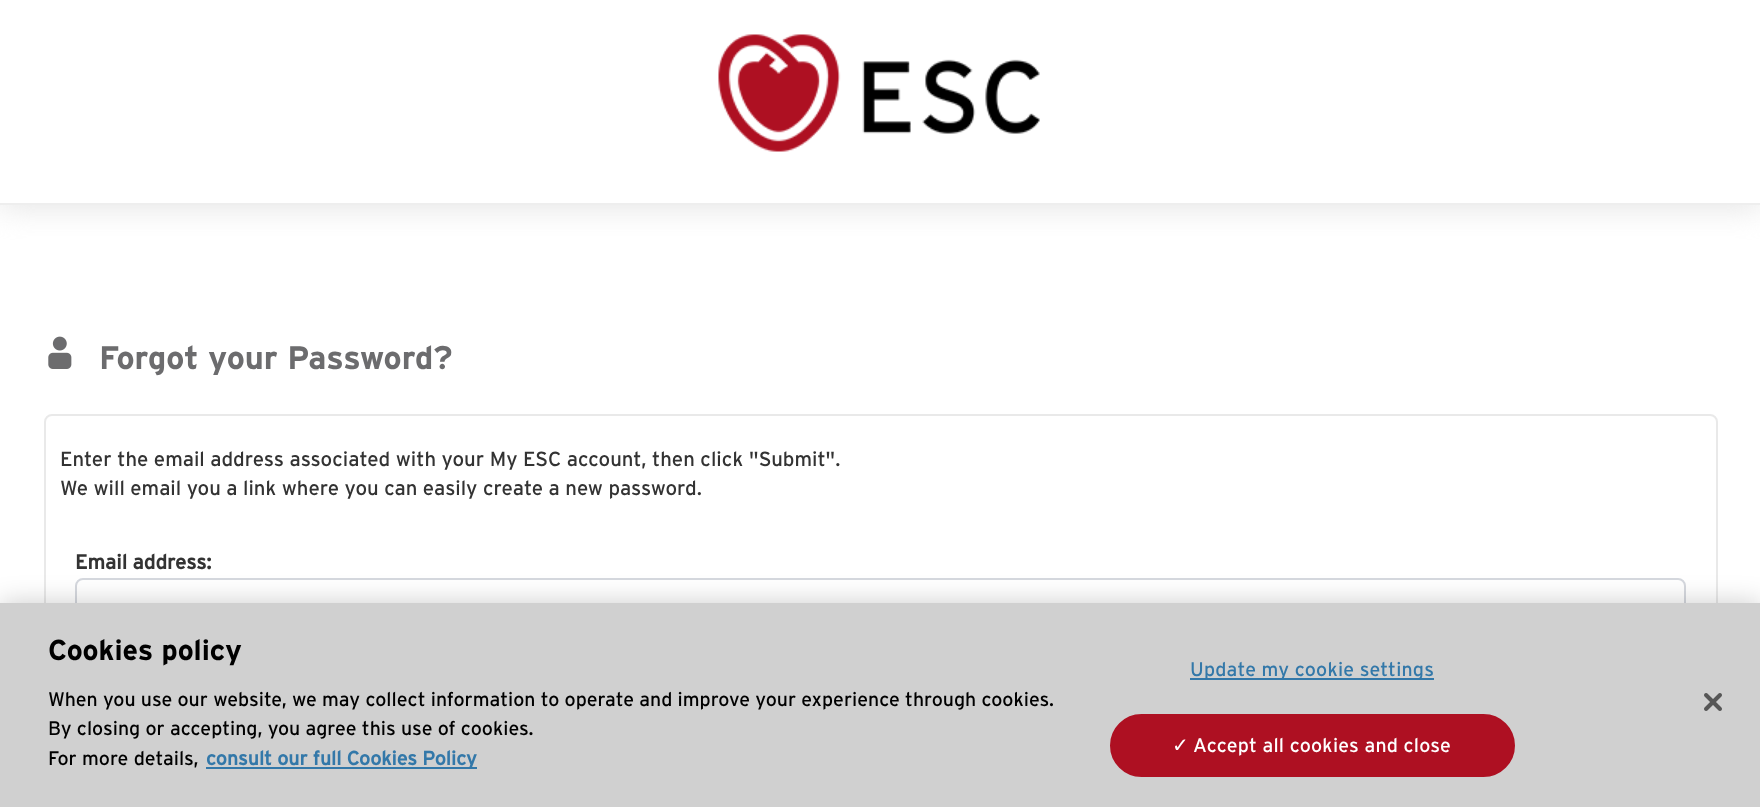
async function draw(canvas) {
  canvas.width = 1760
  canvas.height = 807
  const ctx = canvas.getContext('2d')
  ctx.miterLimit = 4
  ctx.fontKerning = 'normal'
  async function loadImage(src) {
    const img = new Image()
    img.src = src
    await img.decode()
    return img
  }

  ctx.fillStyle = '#fff'
  ctx.fillRect(0, 0, 1760, 807)
  ctx.save()
  ctx.beginPath()
  ctx.rect(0, 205, 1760, 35)
  ctx.clip()
  ctx.fillStyle = '#e6e6e6'
  ctx.filter = 'blur(15px)'
  ctx.beginPath()
  ctx.rect(-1, -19, 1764, 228)
  ctx.fill()
  ctx.filter = 'none'
  ctx.restore()
  ctx.fillStyle = '#eee'
  ctx.fillRect(0, 203, 1760, 2)
  ctx.drawImage(await loadImage('image0.png'), 718, 34, 322, 118)
  ctx.drawImage(await loadImage('image1.png'), 48, 336, 24, 33)
  ctx.font = 'bold 32.6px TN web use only'
  ctx.fillStyle = '#6c6c6e'
  ctx.fillText('Forgot your Password?', 99, 369)
  ctx.beginPath()
  ctx.roundRect(45, 415, 1672, 336, 7)
  ctx.strokeStyle = '#e9e9e9'
  ctx.lineWidth = 2
  ctx.stroke()
  ctx.font = '20.4px TN web use only'
  ctx.fillStyle = '#333'
  ctx.fillText('Enter the email address associated with your My ESC account, then click "Submit".', 60, 466)
  ctx.fillText('We will email you a link where you can easily create a new password.', 60, 495)
  ctx.font = 'bold 20.4px "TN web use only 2"'
  ctx.fillText('Email address:', 75, 569)
  ctx.beginPath()
  ctx.roundRect(76, 579, 1609, 59, 7)
  ctx.strokeStyle = '#d5d8de'
  ctx.stroke()
  ctx.fillStyle = '#00000033'
  ctx.filter = 'blur(13.5px)'
  ctx.beginPath()
  ctx.rect(0, 603, 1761, 204)
  ctx.fill()
  ctx.filter = 'none'
  ctx.fillStyle = '#d0d0d0'
  ctx.fillRect(0, 603, 1760, 204)
  ctx.font = 'bold 28.75px TN web use only'
  ctx.fillStyle = '#000'
  ctx.fillText('Cookies policy', 48, 660)
  ctx.font = '19.5px TN web use only'
  ctx.fillText('When you use our website, we may collect information to operate and improve your experience through cookies.', 48, 706)
  ctx.fillText('By closing or accepting, you agree this use of cookies.', 48, 735)
  ctx.fillText('For more details,', 48, 765)
  ctx.fillStyle = '#3378a9'
  ctx.fillRect(206, 767, 271, 2)
  ctx.font = 'bold 19.5px "TN web use only 2"'
  ctx.fillText('consult our full Cookies Policy', 206, 765)
  ctx.fillRect(1190, 678, 244, 2)
  ctx.letterSpacing = '0.2px'
  ctx.font = '19.5px TN web use only'
  ctx.fillText('Update my cookie settings', 1190, 676)
  ctx.fillStyle = '#ae1022'
  ctx.beginPath()
  ctx.roundRect(1111, 715, 403, 61, 30.5)
  ctx.fill()
  ctx.strokeStyle = '#ae1022'
  ctx.stroke()
  ctx.font = '20px DejaVu Sans'
  ctx.fillStyle = '#fff'
  ctx.fillText('✓', 1172, 752)
  ctx.font = '19.5px TN web use only'
  ctx.fillText('Accept all cookies and close', 1193, 752)
  ctx.drawImage(await loadImage('image2.png'), 1704, 693, 18, 18)
}

draw(document.querySelector('canvas'))
